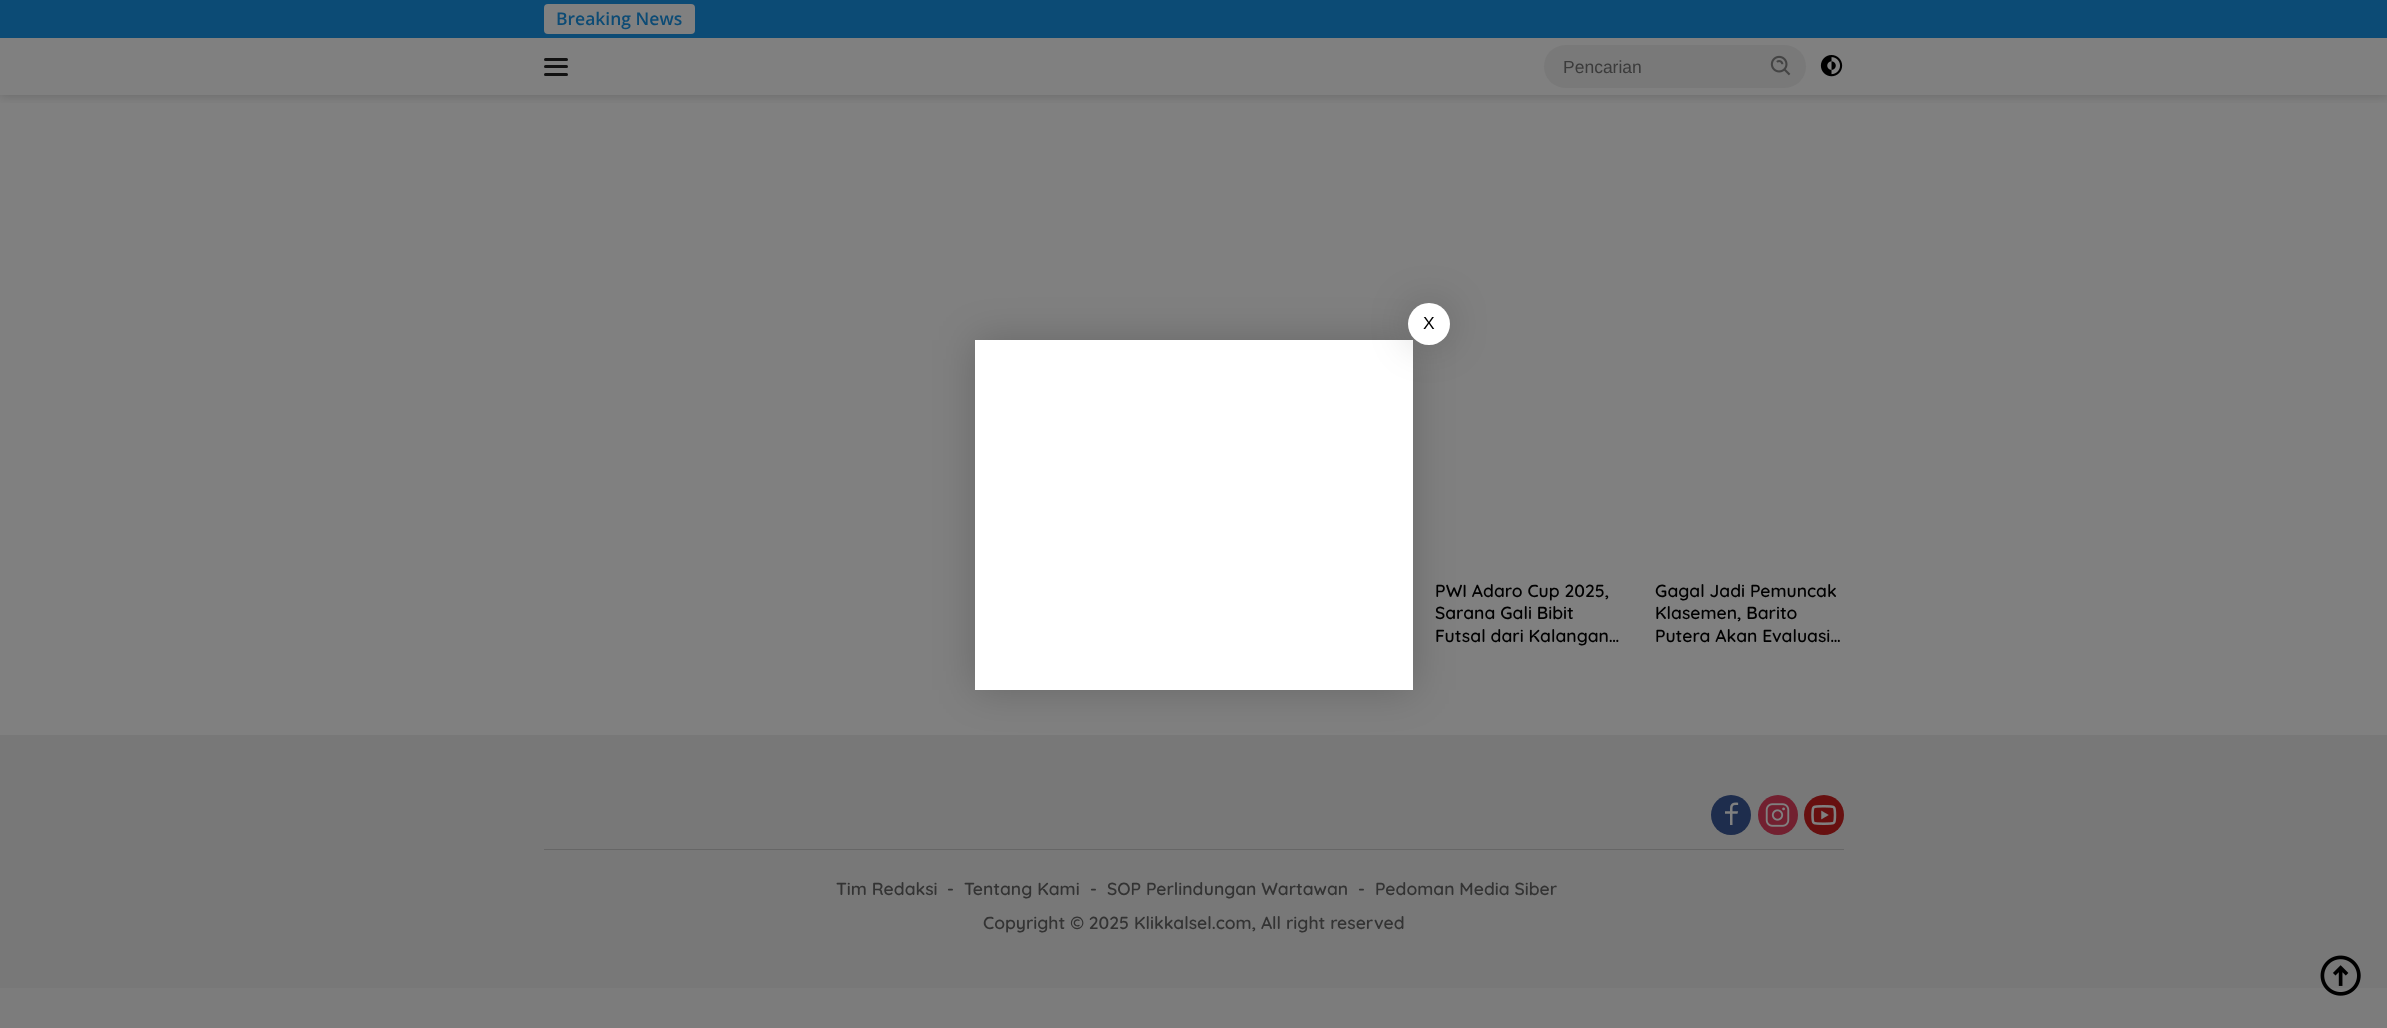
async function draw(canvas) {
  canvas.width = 2387
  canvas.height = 1028
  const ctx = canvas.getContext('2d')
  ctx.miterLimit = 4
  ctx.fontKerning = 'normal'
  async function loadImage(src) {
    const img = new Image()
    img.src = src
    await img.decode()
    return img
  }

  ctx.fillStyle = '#7c7c7c'
  ctx.fillRect(0, 0, 2387, 1028)
  ctx.fillStyle = '#808080'
  ctx.fillRect(0, 38, 2387, 697)
  ctx.save()
  ctx.beginPath()
  ctx.rect(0, 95, 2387, 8)
  ctx.clip()
  ctx.fillStyle = '#00000033'
  ctx.filter = 'blur(6px)'
  ctx.beginPath()
  ctx.rect(0, 0, 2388, 95)
  ctx.fill()
  ctx.filter = 'none'
  ctx.restore()
  ctx.fillStyle = '#0c4b75'
  ctx.fillRect(0, 0, 2387, 38)
  ctx.fillStyle = '#808080'
  ctx.beginPath()
  ctx.roundRect(544, 4, 151, 30, 4)
  ctx.fill()
  ctx.font = '600 17.5px Open Sans'
  ctx.fillStyle = '#0c4b75'
  ctx.fillText('Breaking News', 556, 25)
  ctx.fillStyle = '#111'
  ctx.beginPath()
  ctx.roundRect(544, 58, 24, 3, 1.5)
  ctx.fill()
  ctx.beginPath()
  ctx.roundRect(544, 65, 24, 3, 1.5)
  ctx.fill()
  ctx.beginPath()
  ctx.roundRect(544, 73, 24, 3, 1.5)
  ctx.fill()
  ctx.fillStyle = '#797979'
  ctx.beginPath()
  ctx.roundRect(1544, 45, 262, 43, 21.5)
  ctx.fill()
  ctx.font = '17.5px Liberation Sans'
  ctx.fillStyle = '#3b3b3b'
  ctx.fillText('Pencarian', 1563, 73)
  ctx.drawImage(await loadImage('image0.png'), 1770, 55, 21, 21)
  ctx.drawImage(await loadImage('image1.png'), 1820, 55, 23, 22)
  ctx.fillStyle = '#787878'
  ctx.fillRect(0, 735, 2387, 253)
  ctx.fillStyle = '#00000033'
  ctx.filter = 'blur(20px)'
  ctx.beginPath()
  ctx.rect(975, 340, 438, 350)
  ctx.fill()
  ctx.filter = 'none'
  ctx.fillStyle = '#fff'
  ctx.fillRect(975, 340, 438, 350)
  ctx.fillStyle = '#00000033'
  ctx.filter = 'blur(20px)'
  ctx.beginPath()
  ctx.roundRect(1408, 303, 42, 42, 21)
  ctx.fill()
  ctx.filter = 'none'
  ctx.fillStyle = '#fff'
  ctx.beginPath()
  ctx.arc(1429, 324, 21, 0, 2 * Math.PI)
  ctx.fill()
  ctx.fillStyle = '#000'
  ctx.fillText('X', 1423, 329)
  ctx.font = '600 17.5px Quicksand'
  ctx.fillText('PWI Adaro Cup 2025,', 1435, 597)
  ctx.fillText('Sarana Gali Bibit', 1435, 619)
  ctx.fillText('Futsal dari Kalangan…', 1435, 642)
  ctx.fillText('Gagal Jadi Pemuncak', 1655, 597)
  ctx.fillText('Klasemen, Barito', 1655, 619)
  ctx.fillText('Putera Akan Evaluasi…', 1655, 642)
  ctx.fillStyle = '#666'
  ctx.fillRect(544, 849, 1300, 1)
  ctx.fillStyle = '#1e2d4d'
  ctx.beginPath()
  ctx.arc(1731, 815, 20, 0, 2 * Math.PI)
  ctx.fill()
  ctx.drawImage(await loadImage('image2.png'), 1725, 802, 14, 23)
  ctx.fillStyle = '#722030'
  ctx.beginPath()
  ctx.arc(1778, 815, 20, 0, 2 * Math.PI)
  ctx.fill()
  ctx.drawImage(await loadImage('image3.png'), 1765, 803, 25, 24)
  ctx.fillStyle = '#671010'
  ctx.beginPath()
  ctx.arc(1824, 815, 20, 0, 2 * Math.PI)
  ctx.fill()
  ctx.drawImage(await loadImage('image4.png'), 1811, 805, 26, 20)
  ctx.fillStyle = '#333'
  ctx.fillText('Tim Redaksi', 836, 895)
  ctx.fillText('-', 947, 895)
  ctx.fillText('Tentang Kami', 964, 895)
  ctx.fillText('-', 1090, 895)
  ctx.fillText('SOP Perlindungan Wartawan', 1107, 895)
  ctx.fillText('-', 1358, 895)
  ctx.fillText('Pedoman Media Siber', 1375, 895)
  ctx.fillText('Copyright © 2025 Klikkalsel.com, All right reserved', 983, 929)
  ctx.drawImage(await loadImage('image5.png'), 2320, 955, 41, 41)
}

draw(document.querySelector('canvas'))
